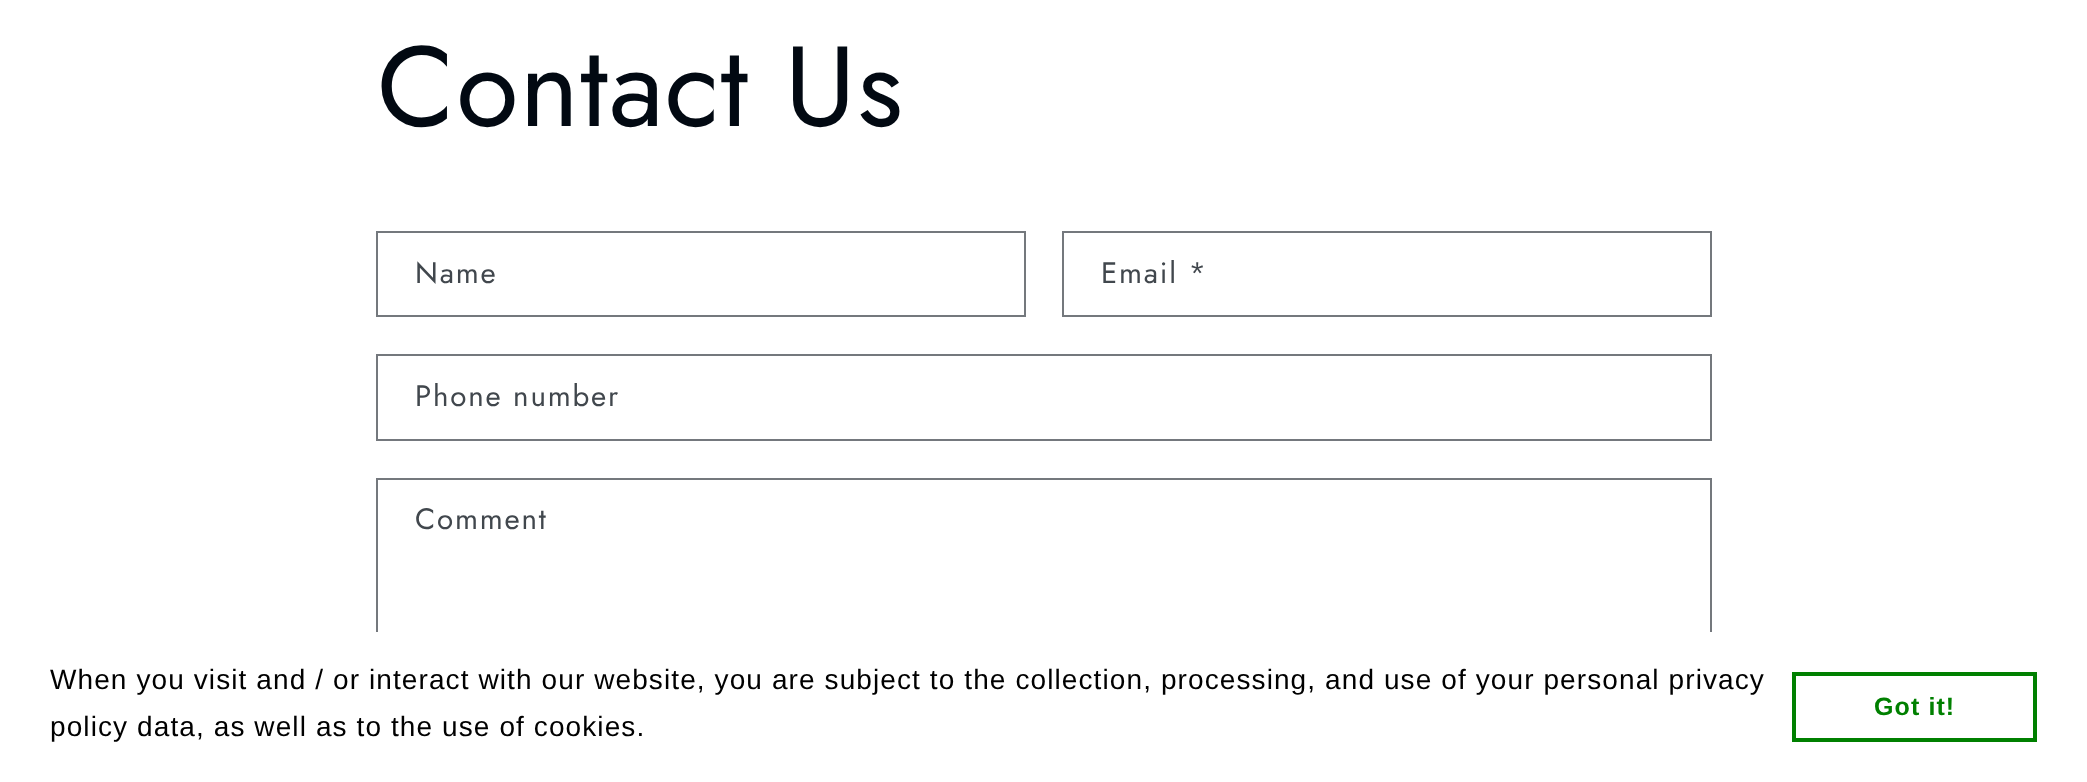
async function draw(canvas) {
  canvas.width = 2087
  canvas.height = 782
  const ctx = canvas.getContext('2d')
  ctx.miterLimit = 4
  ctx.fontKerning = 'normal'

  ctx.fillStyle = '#fff'
  ctx.fillRect(0, 0, 2087, 782)
  ctx.letterSpacing = '1.25px'
  ctx.font = '113.75px Jost'
  ctx.fillStyle = '#020912'
  ctx.fillText('Contact Us', 377, 126)
  ctx.strokeStyle = '#74787d'
  ctx.lineWidth = 2
  ctx.strokeRect(377, 232, 648, 84)
  ctx.letterSpacing = '1.8px'
  ctx.font = '29.5px Jost'
  ctx.fillStyle = '#41474d'
  ctx.fillText('Name', 415, 283)
  ctx.strokeRect(1063, 232, 648, 84)
  ctx.fillText('Email *', 1101, 283)
  ctx.strokeRect(377, 355, 1334, 85)
  ctx.fillText('Phone number', 415, 406)
  ctx.strokeRect(377, 479, 1334, 185)
  ctx.fillText('Comment', 415, 529)
  ctx.fillStyle = '#fff'
  ctx.fillRect(376, 632, 1336, 33)
  ctx.letterSpacing = '1.1px'
  ctx.font = '28px Liberation Sans'
  ctx.fillStyle = '#000'
  ctx.fillText('When you visit and / or interact with our website, you are subject to the collection, processing, and use of your personal privacy', 50, 689)
  ctx.fillText('policy data, as well as to the use of cookies.', 50, 736)
  ctx.strokeStyle = '#008000'
  ctx.lineWidth = 4
  ctx.strokeRect(1794, 674, 241, 66)
  ctx.font = 'bold 25px Liberation Sans'
  ctx.fillStyle = '#008000'
  ctx.fillText('Got it!', 1874, 715)
}

draw(document.querySelector('canvas'))
